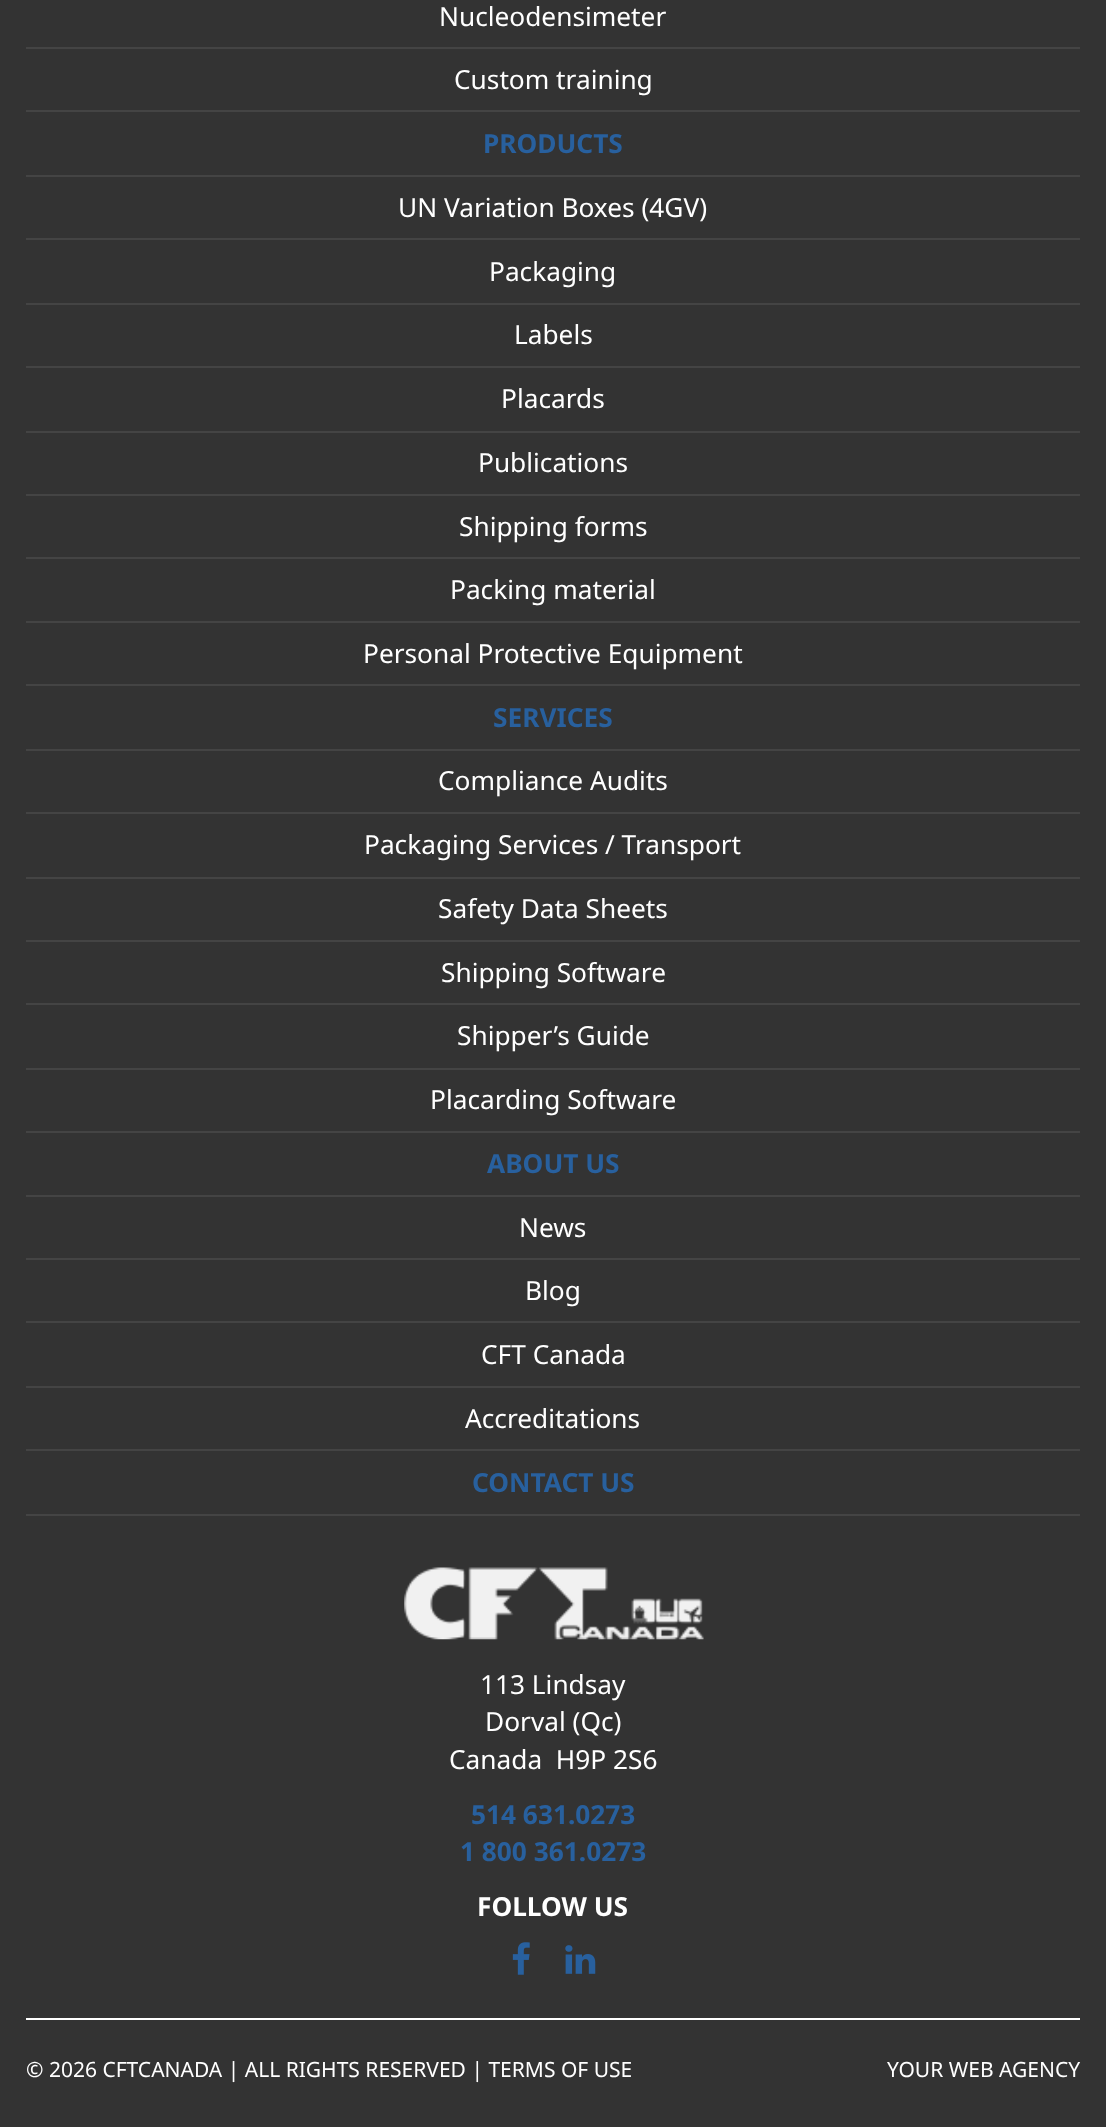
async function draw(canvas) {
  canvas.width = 1106
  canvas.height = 2127
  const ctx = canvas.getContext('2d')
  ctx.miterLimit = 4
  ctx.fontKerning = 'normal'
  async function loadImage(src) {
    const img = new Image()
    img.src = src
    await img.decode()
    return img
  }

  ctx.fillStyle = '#333'
  ctx.fillRect(0, 0, 1106, 2127)
  ctx.fillStyle = '#444'
  ctx.fillRect(26, 47, 1054, 2)
  ctx.font = '26.25px Noto Sans'
  ctx.fillStyle = '#fff'
  ctx.fillText('Nucleodensimeter', 439, 26)
  ctx.fillStyle = '#444'
  ctx.fillRect(26, 110, 1054, 2)
  ctx.fillStyle = '#fff'
  ctx.fillText('Custom training', 454, 89)
  ctx.fillStyle = '#444'
  ctx.fillRect(26, 175, 1054, 2)
  ctx.font = 'bold 26.25px Noto Sans'
  ctx.fillStyle = '#28609e'
  ctx.fillText('PRODUCTS', 483, 153)
  ctx.fillStyle = '#444'
  ctx.fillRect(26, 238, 1054, 2)
  ctx.font = '26.25px Noto Sans'
  ctx.fillStyle = '#fff'
  ctx.fillText('UN Variation Boxes (4GV)', 398, 217)
  ctx.fillStyle = '#444'
  ctx.fillRect(26, 303, 1054, 2)
  ctx.fillStyle = '#fff'
  ctx.fillText('Packaging', 489, 281)
  ctx.fillStyle = '#444'
  ctx.fillRect(26, 366, 1054, 2)
  ctx.fillStyle = '#fff'
  ctx.fillText('Labels', 514, 344)
  ctx.fillStyle = '#444'
  ctx.fillRect(26, 431, 1054, 2)
  ctx.fillStyle = '#fff'
  ctx.fillText('Placards', 501, 408)
  ctx.fillStyle = '#444'
  ctx.fillRect(26, 494, 1054, 2)
  ctx.fillStyle = '#fff'
  ctx.fillText('Publications', 478, 472)
  ctx.fillStyle = '#444'
  ctx.fillRect(26, 557, 1054, 2)
  ctx.fillStyle = '#fff'
  ctx.fillText('Shipping forms', 459, 536)
  ctx.fillStyle = '#444'
  ctx.fillRect(26, 621, 1054, 2)
  ctx.fillStyle = '#fff'
  ctx.fillText('Packing material', 450, 599)
  ctx.fillStyle = '#444'
  ctx.fillRect(26, 684, 1054, 2)
  ctx.fillStyle = '#fff'
  ctx.fillText('Personal Protective Equipment', 363, 663)
  ctx.fillStyle = '#444'
  ctx.fillRect(26, 749, 1054, 2)
  ctx.font = 'bold 26.25px Noto Sans'
  ctx.fillStyle = '#28609e'
  ctx.fillText('SERVICES', 493, 727)
  ctx.fillStyle = '#444'
  ctx.fillRect(26, 812, 1054, 2)
  ctx.font = '26.25px Noto Sans'
  ctx.fillStyle = '#fff'
  ctx.fillText('Compliance Audits', 438, 790)
  ctx.fillStyle = '#444'
  ctx.fillRect(26, 877, 1054, 2)
  ctx.fillStyle = '#fff'
  ctx.fillText('Packaging Services / Transport', 364, 854)
  ctx.fillStyle = '#444'
  ctx.fillRect(26, 940, 1054, 2)
  ctx.fillStyle = '#fff'
  ctx.fillText('Safety Data Sheets', 438, 918)
  ctx.fillStyle = '#444'
  ctx.fillRect(26, 1003, 1054, 2)
  ctx.fillStyle = '#fff'
  ctx.fillText('Shipping Software', 441, 982)
  ctx.fillStyle = '#444'
  ctx.fillRect(26, 1068, 1054, 2)
  ctx.fillStyle = '#fff'
  ctx.fillText('Shipper’s Guide', 457, 1045)
  ctx.fillStyle = '#444'
  ctx.fillRect(26, 1131, 1054, 2)
  ctx.fillStyle = '#fff'
  ctx.fillText('Placarding Software', 430, 1109)
  ctx.fillStyle = '#444'
  ctx.fillRect(26, 1195, 1054, 2)
  ctx.font = 'bold 26.25px Noto Sans'
  ctx.fillStyle = '#28609e'
  ctx.fillText('ABOUT US', 487, 1173)
  ctx.fillStyle = '#444'
  ctx.fillRect(26, 1258, 1054, 2)
  ctx.font = '26.25px Noto Sans'
  ctx.fillStyle = '#fff'
  ctx.fillText('News', 519, 1237)
  ctx.fillStyle = '#444'
  ctx.fillRect(26, 1321, 1054, 2)
  ctx.fillStyle = '#fff'
  ctx.fillText('Blog', 525, 1300)
  ctx.fillStyle = '#444'
  ctx.fillRect(26, 1386, 1054, 2)
  ctx.fillStyle = '#fff'
  ctx.fillText('CFT Canada', 481, 1364)
  ctx.fillStyle = '#444'
  ctx.fillRect(26, 1449, 1054, 2)
  ctx.fillStyle = '#fff'
  ctx.fillText('Accreditations', 465, 1428)
  ctx.fillStyle = '#444'
  ctx.fillRect(26, 1514, 1054, 2)
  ctx.font = 'bold 26.25px Noto Sans'
  ctx.fillStyle = '#28609e'
  ctx.fillText('CONTACT US', 472, 1492)
  ctx.drawImage(await loadImage('image0.png'), 404, 1567, 300, 73)
  ctx.font = '26.25px Noto Sans'
  ctx.fillStyle = '#fff'
  ctx.fillText('113 Lindsay', 480, 1694)
  ctx.fillText('Dorval (Qc)', 485, 1731)
  ctx.fillText('Canada  H9P 2S6', 449, 1769)
  ctx.font = 'bold 26.25px Noto Sans'
  ctx.fillStyle = '#28609e'
  ctx.fillText('514 631.0273', 471, 1824)
  ctx.fillText('1 800 361.0273', 460, 1861)
  ctx.fillStyle = '#fff'
  ctx.fillText('FOLLOW US', 477, 1916)
  ctx.drawImage(await loadImage('image1.png'), 512, 1942, 18, 33)
  ctx.drawImage(await loadImage('image2.png'), 565, 1945, 31, 29)
  ctx.fillRect(26, 2018, 1054, 2)
  ctx.font = '21px Noto Sans'
  ctx.fillText('© 2026 CFTCANADA | ALL RIGHTS RESERVED | TERMS OF USE', 26, 2077)
  ctx.fillText('YOUR WEB AGENCY', 887, 2077)
}

draw(document.querySelector('canvas'))
